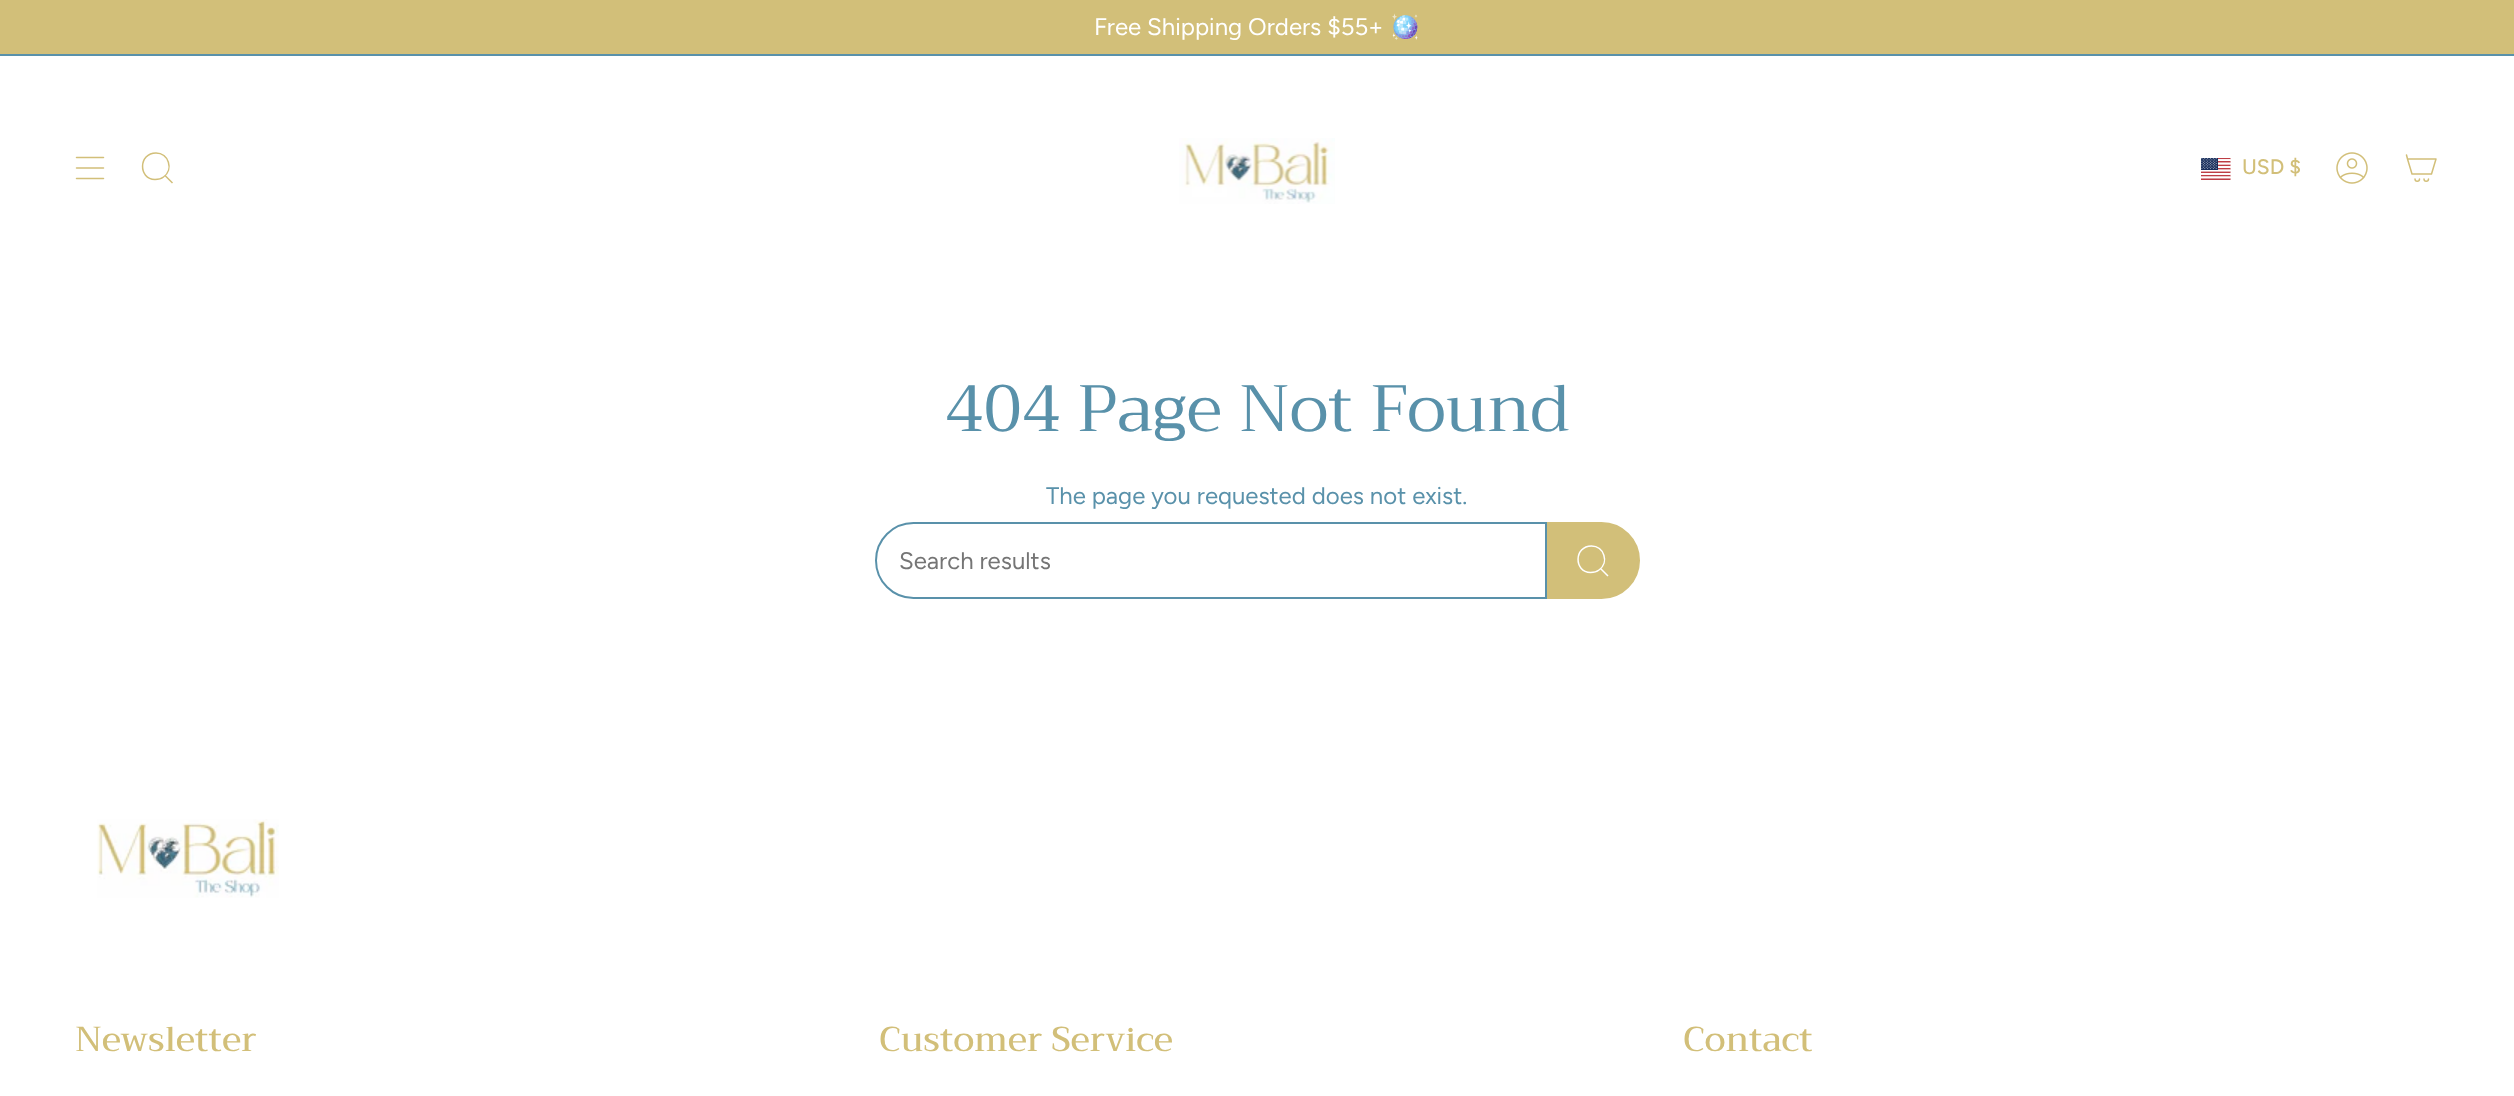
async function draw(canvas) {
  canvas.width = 2514
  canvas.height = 1096
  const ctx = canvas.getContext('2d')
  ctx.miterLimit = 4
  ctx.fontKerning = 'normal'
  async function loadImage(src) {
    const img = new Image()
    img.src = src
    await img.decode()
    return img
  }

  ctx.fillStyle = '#fff'
  ctx.fillRect(0, 0, 2514, 1096)
  ctx.fillStyle = '#d2bf79'
  ctx.fillRect(0, 0, 2514, 54)
  ctx.fillStyle = '#5991aa'
  ctx.fillRect(0, 54, 2514, 2)
  ctx.font = '24px Figtree'
  ctx.fillStyle = '#fff'
  ctx.fillText('Free Shipping Orders $55+', 1094, 35)
  ctx.font = '24px Noto Color Emoji'
  ctx.fillText('🪩', 1390, 35)
  ctx.beginPath()
  ctx.moveTo(76.5, 157.5)
  ctx.lineTo(103.5, 157.5)
  ctx.moveTo(76.5, 168)
  ctx.lineTo(103.5, 168)
  ctx.moveTo(76.5, 178.5)
  ctx.lineTo(103.5, 178.5)
  ctx.strokeStyle = '#d2bf79'
  ctx.lineWidth = 1.5
  ctx.lineCap = 'round'
  ctx.lineJoin = 'round'
  ctx.stroke()
  ctx.beginPath()
  ctx.moveTo(156, 153)
  ctx.bezierCurveTo(168.5, 153, 174, 169.5, 163.5, 177)
  ctx.bezierCurveTo(161, 179, 158, 179.5, 155, 179.5)
  ctx.bezierCurveTo(138, 179, 138.5, 153, 156, 153)
  ctx.closePath()
  ctx.moveTo(165, 175.5)
  ctx.lineTo(172.5, 183)
  ctx.lineCap = 'butt'
  ctx.lineJoin = 'miter'
  ctx.stroke()
  ctx.drawImage(await loadImage('image0.png'), 1179, 138, 156, 66)
  ctx.drawImage(await loadImage('image1.png'), 2201, 158, 30, 22)
  ctx.font = '500 21px Figtree'
  ctx.fillStyle = '#d2bf79'
  ctx.fillText('USD $', 2242, 174)
  ctx.drawImage(await loadImage('image2.png'), 2336, 152, 32, 32)
  ctx.beginPath()
  ctx.moveTo(2407.5, 159)
  ctx.lineTo(2436, 159)
  ctx.lineTo(2431.5, 174)
  ctx.lineTo(2412, 174)
  ctx.closePath()
  ctx.moveTo(2407.5, 159)
  ctx.lineTo(2406.5, 155)
  ctx.moveTo(2419.5, 179)
  ctx.bezierCurveTo(2419.5, 182, 2415, 182, 2415, 179)
  ctx.moveTo(2428.5, 179)
  ctx.bezierCurveTo(2428.5, 182, 2424, 182, 2424, 179)
  ctx.lineCap = 'round'
  ctx.lineJoin = 'round'
  ctx.stroke()
  ctx.font = '65.5px Trirong'
  ctx.fillStyle = '#5991aa'
  ctx.fillText('404 Page Not Found', 945, 431)
  ctx.font = '24px Figtree'
  ctx.fillText('The page you requested does not exist.', 1046, 504)
  ctx.beginPath()
  ctx.roundRect(876, 523, 670, 75, [37.5, 0, 0, 37.5])
  ctx.strokeStyle = '#5991aa'
  ctx.lineWidth = 2
  ctx.lineJoin = 'miter'
  ctx.stroke()
  ctx.fillStyle = '#757575'
  ctx.fillText('Search results', 899, 569)
  ctx.fillStyle = '#d2bf79'
  ctx.beginPath()
  ctx.roundRect(1548, 523, 91, 75, [0, 37.5, 37.5, 0])
  ctx.fill()
  ctx.strokeStyle = '#d2bf79'
  ctx.stroke()
  ctx.beginPath()
  ctx.moveTo(1591.5, 546)
  ctx.bezierCurveTo(1604, 546, 1609.5, 562.5, 1599, 570)
  ctx.bezierCurveTo(1596.5, 572, 1593.5, 572.5, 1590.5, 572.5)
  ctx.bezierCurveTo(1573.5, 572, 1574, 546, 1591.5, 546)
  ctx.closePath()
  ctx.moveTo(1600.5, 568.5)
  ctx.lineTo(1608, 576)
  ctx.strokeStyle = '#fff'
  ctx.lineWidth = 1.5
  ctx.lineCap = 'butt'
  ctx.stroke()
  ctx.drawImage(await loadImage('image3.png'), 97, 819, 182, 79)
  ctx.font = '500 34.5px Trirong'
  ctx.fillText('Newsletter', 75, 1051)
  ctx.fillText('Customer Service', 879, 1051)
  ctx.fillText('Contact', 1683, 1051)
}

draw(document.querySelector('canvas'))
